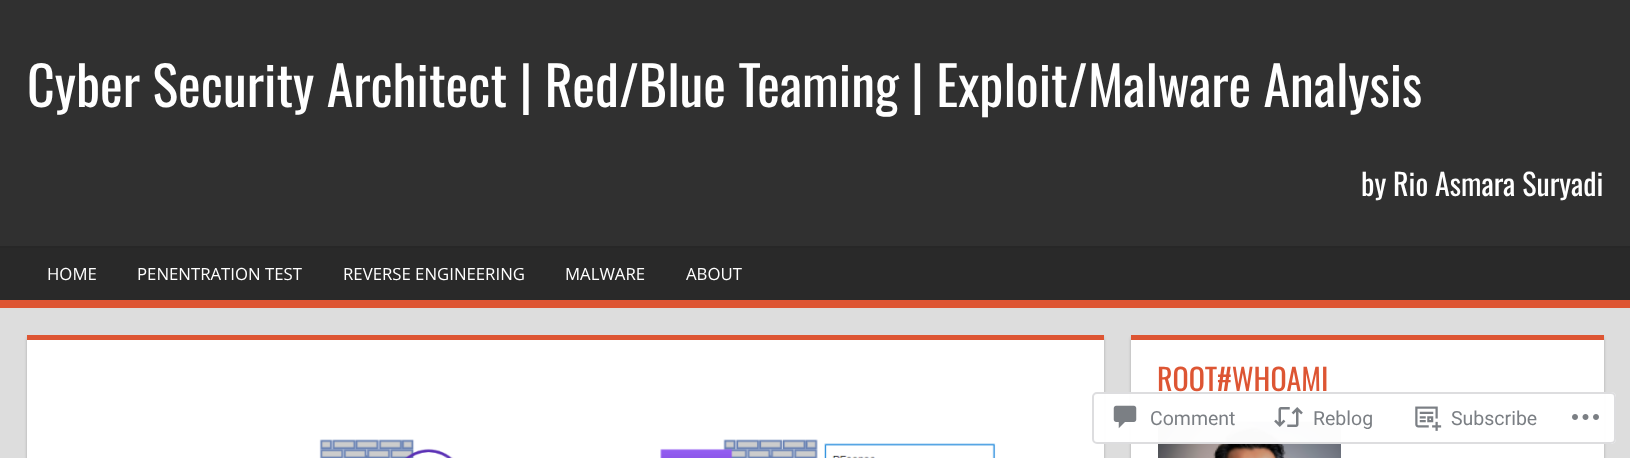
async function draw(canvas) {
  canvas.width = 1630
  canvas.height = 458
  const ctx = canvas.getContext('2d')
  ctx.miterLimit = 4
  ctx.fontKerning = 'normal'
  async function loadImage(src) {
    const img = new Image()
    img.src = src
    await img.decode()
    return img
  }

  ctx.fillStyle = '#ddd'
  ctx.fillRect(0, 0, 1630, 458)
  ctx.fillStyle = '#303030'
  ctx.fillRect(0, 0, 1630, 246)
  ctx.font = '54px Oswald'
  ctx.fillStyle = '#fff'
  ctx.fillText('Cyber Security Architect | Red/Blue Teaming | Exploit/Malware Analysis', 27, 107)
  ctx.font = '30px Oswald'
  ctx.fillText('by Rio Asmara Suryadi', 1361, 196)
  ctx.fillStyle = '#292929'
  ctx.fillRect(0, 248, 1630, 52)
  ctx.fillStyle = '#272727'
  ctx.fillRect(0, 246, 1630, 2)
  ctx.fillStyle = '#d53'
  ctx.fillRect(0, 300, 1630, 8)
  ctx.font = '16.75px Open Sans'
  ctx.fillStyle = '#fff'
  ctx.fillText('HOME', 47, 280)
  ctx.fillText('PENENTRATION TEST', 137, 280)
  ctx.fillText('REVERSE ENGINEERING', 343, 280)
  ctx.fillText('MALWARE', 565, 280)
  ctx.fillText('ABOUT', 686, 280)
  ctx.fillStyle = '#aaa'
  ctx.filter = 'blur(1.5px)'
  ctx.beginPath()
  ctx.rect(27, 338, 1077, 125)
  ctx.fill()
  ctx.filter = 'none'
  ctx.fillStyle = '#fff'
  ctx.fillRect(27, 340, 1077, 118)
  ctx.fillStyle = '#d53'
  ctx.fillRect(27, 335, 1077, 5)
  ctx.drawImage(await loadImage('image0.png'), 319, 439, 677, 19)
  ctx.fillStyle = '#aaa'
  ctx.filter = 'blur(1.5px)'
  ctx.beginPath()
  ctx.rect(1131, 338, 473, 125)
  ctx.fill()
  ctx.filter = 'none'
  ctx.fillStyle = '#fff'
  ctx.fillRect(1131, 340, 473, 118)
  ctx.fillStyle = '#d53'
  ctx.fillRect(1131, 335, 473, 5)
  ctx.font = '30px Oswald'
  ctx.fillText('ROOT#WHOAMI', 1157, 391)
  ctx.drawImage(await loadImage('image1.png'), 1158, 421, 183, 37)
  ctx.fillStyle = '#fffffffa'
  ctx.beginPath()
  ctx.roundRect(1092, 392, 524, 52, 5)
  ctx.fill()
  ctx.beginPath()
  ctx.roundRect(1093, 393, 522, 50, 4)
  ctx.strokeStyle = '#dcdcdefa'
  ctx.lineWidth = 2
  ctx.stroke()
  ctx.drawImage(await loadImage('image2.png'), 1113, 405, 24, 24)
  ctx.font = '19.5px Roboto'
  ctx.fillStyle = '#7b7f84'
  ctx.fillText('Comment', 1150, 425)
  ctx.drawImage(await loadImage('image3.png'), 1274, 407, 29, 20)
  ctx.fillText('Reblog', 1313, 425)
  ctx.drawImage(await loadImage('image4.png'), 1415, 406, 27, 25)
  ctx.fillText('Subscribe', 1451, 425)
  ctx.drawImage(await loadImage('image5.png'), 1572, 414, 27, 6)
}

draw(document.querySelector('canvas'))
